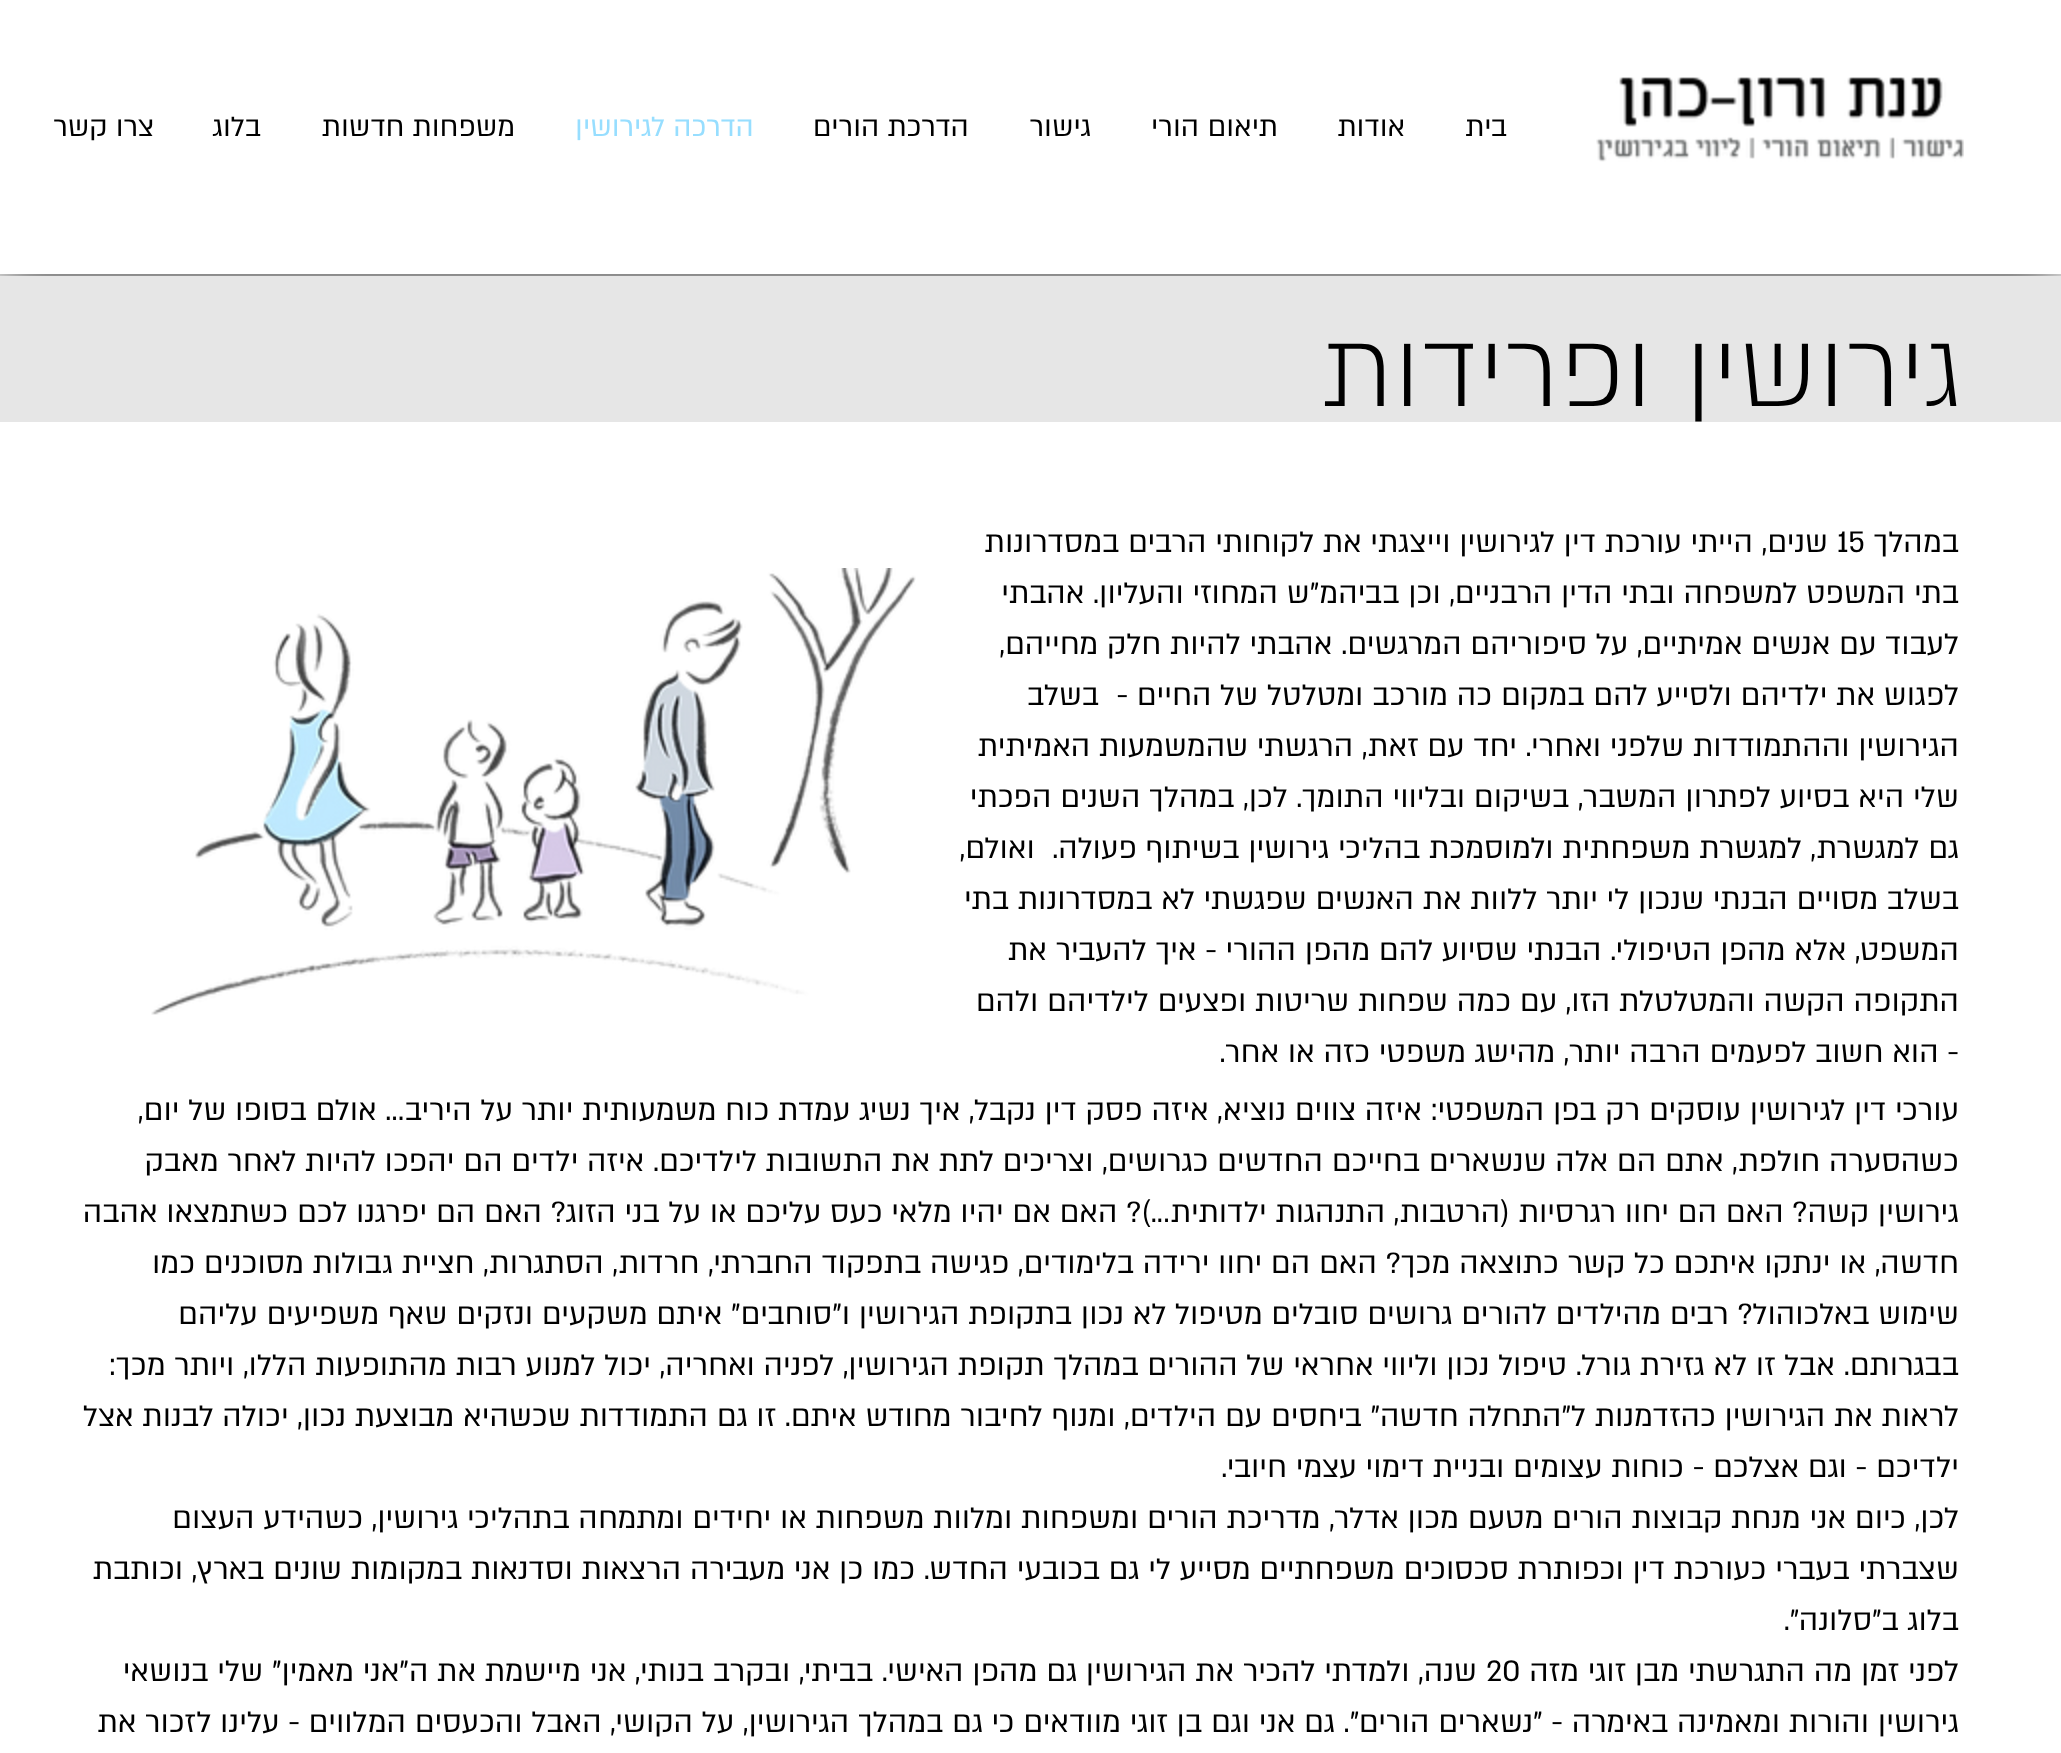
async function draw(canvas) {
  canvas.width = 2061
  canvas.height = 1753
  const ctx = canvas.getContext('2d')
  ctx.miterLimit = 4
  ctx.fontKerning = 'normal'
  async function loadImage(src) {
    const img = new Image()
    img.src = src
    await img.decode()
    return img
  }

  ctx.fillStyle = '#fff'
  ctx.fillRect(0, 0, 2061, 1753)
  ctx.save()
  ctx.beginPath()
  ctx.rect(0, 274, 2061, 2)
  ctx.clip()
  ctx.fillStyle = '#000000b3'
  ctx.filter = 'blur(26px)'
  ctx.beginPath()
  ctx.rect(-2, 10, 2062, 274)
  ctx.fill()
  ctx.filter = 'none'
  ctx.restore()
  ctx.drawImage(await loadImage('image0.png'), 1596, 77, 368, 85)
  ctx.direction = 'rtl'
  ctx.font = '32px "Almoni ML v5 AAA"'
  ctx.fillStyle = '#000'
  ctx.fillText('בית', 1507, 136)
  ctx.fillText('אודות', 1405, 136)
  ctx.fillText('תיאום הורי', 1278, 136)
  ctx.fillText('גישור', 1091, 136)
  ctx.fillText('הדרכת הורים', 969, 136)
  ctx.fillStyle = '#97deff'
  ctx.fillText('הדרכה לגירושין', 754, 136)
  ctx.fillStyle = '#000'
  ctx.fillText('משפחות חדשות', 515, 136)
  ctx.fillText('בלוג', 261, 136)
  ctx.fillText('צרו קשר', 154, 136)
  ctx.fillStyle = '#e6e6e6'
  ctx.fillRect(0, 276, 2061, 146)
  ctx.font = '300 120px "Almoni ML v5 AAA"'
  ctx.fillStyle = '#000'
  ctx.fillText('גירושין ופרידות', 1962, 406)
  ctx.font = '34px "Almoni ML v5 AAA"'
  ctx.fillText('במהלך', 1959, 552)
  ctx.direction = 'ltr'
  ctx.fillText('15', 1837, 552)
  ctx.direction = 'rtl'
  ctx.fillText('שנים, הייתי עורכת דין לגירושין וייצגתי את לקוחותי הרבים במסדרונות', 1828, 552)
  ctx.fillText('בתי המשפט למשפחה ובתי הדין הרבניים, וכן בביהמ"ש המחוזי והעליון. אהבתי', 1959, 603)
  ctx.fillText('לעבוד עם אנשים אמיתיים, על סיפוריהם המרגשים. אהבתי להיות חלק מחייהם,', 1959, 654)
  ctx.fillText('לפגוש את ילדיהם ולסייע להם במקום כה מורכב ומטלטל של החיים -  בשלב', 1959, 705)
  ctx.fillText('הגירושין וההתמודדות שלפני ואחרי. יחד עם זאת, הרגשתי שהמשמעות האמיתית', 1959, 756)
  ctx.fillText('שלי היא בסיוע לפתרון המשבר, בשיקום ובליווי התומך. לכן, במהלך השנים הפכתי', 1959, 807)
  ctx.fillText('גם למגשרת, למגשרת משפחתית ולמוסמכת בהליכי גירושין בשיתוף פעולה.  ואולם,', 1959, 858)
  ctx.fillText('בשלב מסויים הבנתי שנכון לי יותר ללוות את האנשים שפגשתי לא במסדרונות בתי', 1959, 909)
  ctx.fillText('המשפט, אלא מהפן הטיפולי. הבנתי שסיוע להם מהפן ההורי - איך להעביר את', 1959, 960)
  ctx.fillText('התקופה הקשה והמטלטלת הזו, עם כמה שפחות שריטות ופצעים לילדיהם ולהם', 1959, 1011)
  ctx.fillText('- הוא חשוב לפעמים הרבה יותר, מהישג משפטי כזה או אחר.', 1959, 1062)
  ctx.drawImage(await loadImage('image1.png'), 151, 568, 765, 447)
  ctx.fillText('עורכי דין לגירושין עוסקים רק בפן המשפטי: איזה צווים נוציא, איזה פסק דין נקבל, איך נשיג עמדת כוח משמעותית יותר על היריב... אולם בסופו של יום,', 1959, 1120)
  ctx.fillText('כשהסערה חולפת, אתם הם אלה שנשארים בחייכם החדשים כגרושים, וצריכים לתת את התשובות לילדיכם. איזה ילדים הם יהפכו להיות לאחר מאבק', 1959, 1171)
  ctx.fillText('גירושין קשה? האם הם יחוו רגרסיות (הרטבות, התנהגות ילדותית...)? האם אם יהיו מלאי כעס עליכם או על בני הזוג? האם הם יפרגנו לכם כשתמצאו אהבה', 1959, 1222)
  ctx.fillText('חדשה, או ינתקו איתכם כל קשר כתוצאה מכך? האם הם יחוו ירידה בלימודים, פגישה בתפקוד החברתי, חרדות, הסתגרות, חציית גבולות מסוכנים כמו', 1959, 1273)
  ctx.fillText('שימוש באלכוהול? רבים מהילדים להורים גרושים סובלים מטיפול לא נכון בתקופת הגירושין ו"סוחבים" איתם משקעים ונזקים שאף משפיעים עליהם', 1959, 1324)
  ctx.fillText('בבגרותם. אבל זו לא גזירת גורל. טיפול נכון וליווי אחראי של ההורים במהלך תקופת הגירושין, לפניה ואחריה, יכול למנוע רבות מהתופעות הללו, ויותר מכך:', 1959, 1375)
  ctx.fillText('לראות את הגירושין כהזדמנות ל"התחלה חדשה" ביחסים עם הילדים, ומנוף לחיבור מחודש איתם. זו גם התמודדות שכשהיא מבוצעת נכון, יכולה לבנות אצל', 1959, 1426)
  ctx.fillText('ילדיכם - וגם אצלכם - כוחות עצומים ובניית דימוי עצמי חיובי.', 1959, 1477)
  ctx.fillText('לכן, כיום אני מנחת קבוצות הורים מטעם מכון אדלר, מדריכת הורים ומשפחות ומלוות משפחות או יחידים ומתמחה בתהליכי גירושין, כשהידע העצום', 1959, 1528)
  ctx.fillText('שצברתי בעברי כעורכת דין וכפותרת סכסוכים משפחתיים מסייע לי גם בכובעי החדש. כמו כן אני מעבירה הרצאות וסדנאות במקומות שונים בארץ, וכותבת', 1959, 1579)
  ctx.fillText('בלוג ב"סלונה".', 1959, 1630)
  ctx.fillText('לפני זמן מה התגרשתי מבן זוגי מזה', 1959, 1681)
  ctx.direction = 'ltr'
  ctx.fillText('20', 1486, 1681)
  ctx.direction = 'rtl'
  ctx.fillText('שנה, ולמדתי להכיר את הגירושין גם מהפן האישי. בביתי, ובקרב בנותי, אני מיישמת את ה"אני מאמין" שלי בנושאי', 1477, 1681)
  ctx.fillText('גירושין והורות ומאמינה באימרה - "נשארים הורים". גם אני וגם בן זוגי מוודאים כי גם במהלך הגירושין, על הקושי, האבל והכעסים המלווים - עלינו לזכור את', 1959, 1732)
}

draw(document.querySelector('canvas'))
